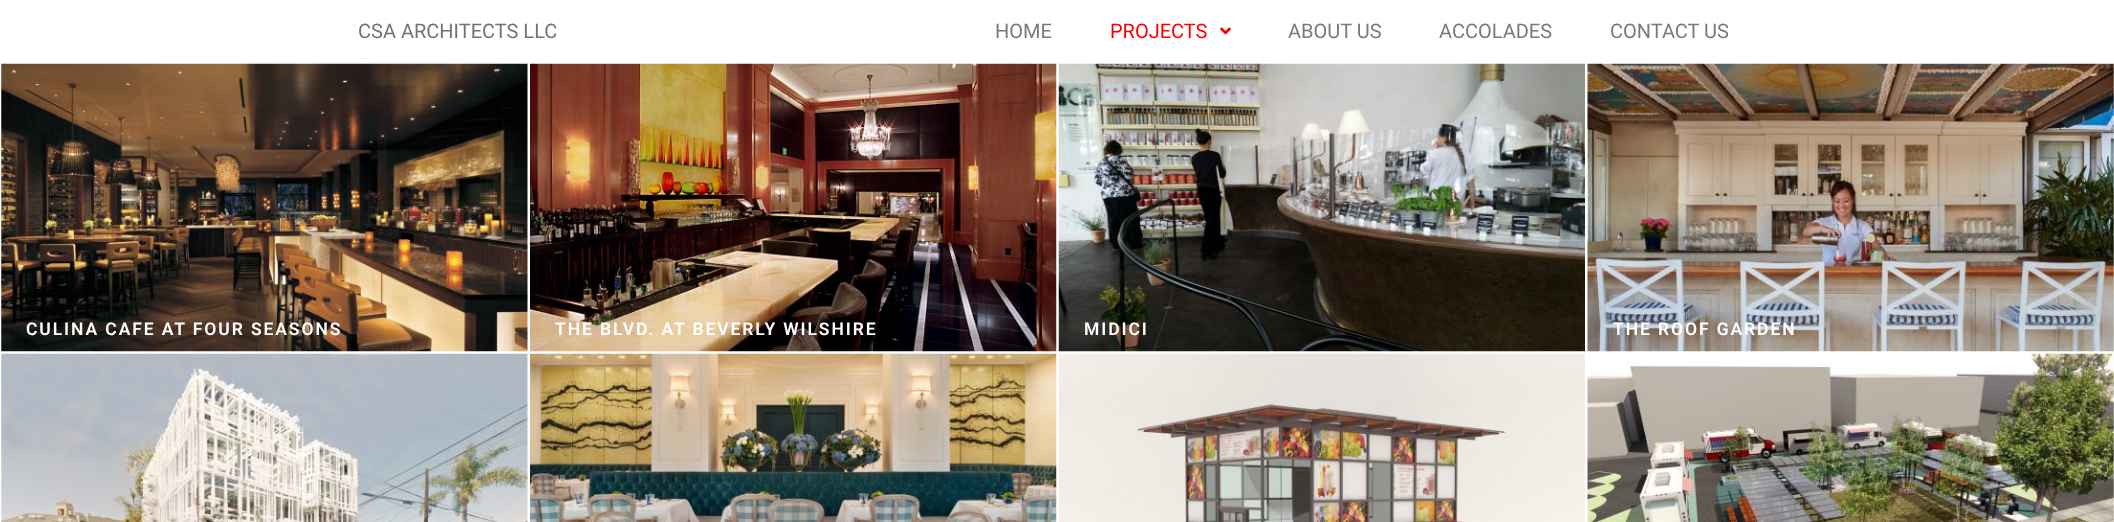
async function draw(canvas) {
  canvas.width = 2114
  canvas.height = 522
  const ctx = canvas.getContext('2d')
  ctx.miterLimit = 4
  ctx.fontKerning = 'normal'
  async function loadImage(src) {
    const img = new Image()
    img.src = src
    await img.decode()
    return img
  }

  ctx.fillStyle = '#fff'
  ctx.fillRect(0, 0, 2114, 522)
  ctx.font = '20px Roboto'
  ctx.fillStyle = '#737373'
  ctx.fillText('CSA ARCHITECTS LLC', 358, 38)
  ctx.fillStyle = '#7a7a7a'
  ctx.fillText('HOME', 995, 38)
  ctx.fillStyle = '#f00'
  ctx.fillText('PROJECTS', 1110, 38)
  ctx.drawImage(await loadImage('image0.png'), 1220, 27, 11, 8)
  ctx.fillStyle = '#7a7a7a'
  ctx.fillText('ABOUT US', 1288, 38)
  ctx.fillText('ACCOLADES', 1439, 38)
  ctx.fillText('CONTACT US', 1610, 38)
  ctx.drawImage(await loadImage('image1.png'), 1, 63, 527, 289)
  ctx.letterSpacing = '1.9px'
  ctx.font = '600 17.5px Roboto'
  ctx.fillStyle = '#fff'
  ctx.fillText('CULINA CAFE AT FOUR SEASONS', 26, 335)
  ctx.drawImage(await loadImage('image2.png'), 530, 63, 527, 289)
  ctx.fillText('THE BLVD. AT BEVERLY WILSHIRE', 555, 335)
  ctx.drawImage(await loadImage('image3.png'), 1058, 63, 527, 289)
  ctx.fillText('MIDICI', 1084, 335)
  ctx.drawImage(await loadImage('image4.png'), 1587, 63, 527, 289)
  ctx.fillText('THE ROOF GARDEN', 1613, 335)
  ctx.drawImage(await loadImage('image5.png'), 1, 353, 527, 169)
  ctx.drawImage(await loadImage('image6.png'), 530, 353, 527, 169)
  ctx.drawImage(await loadImage('image7.png'), 1058, 353, 527, 169)
  ctx.drawImage(await loadImage('image8.png'), 1587, 353, 527, 169)
}

draw(document.querySelector('canvas'))
